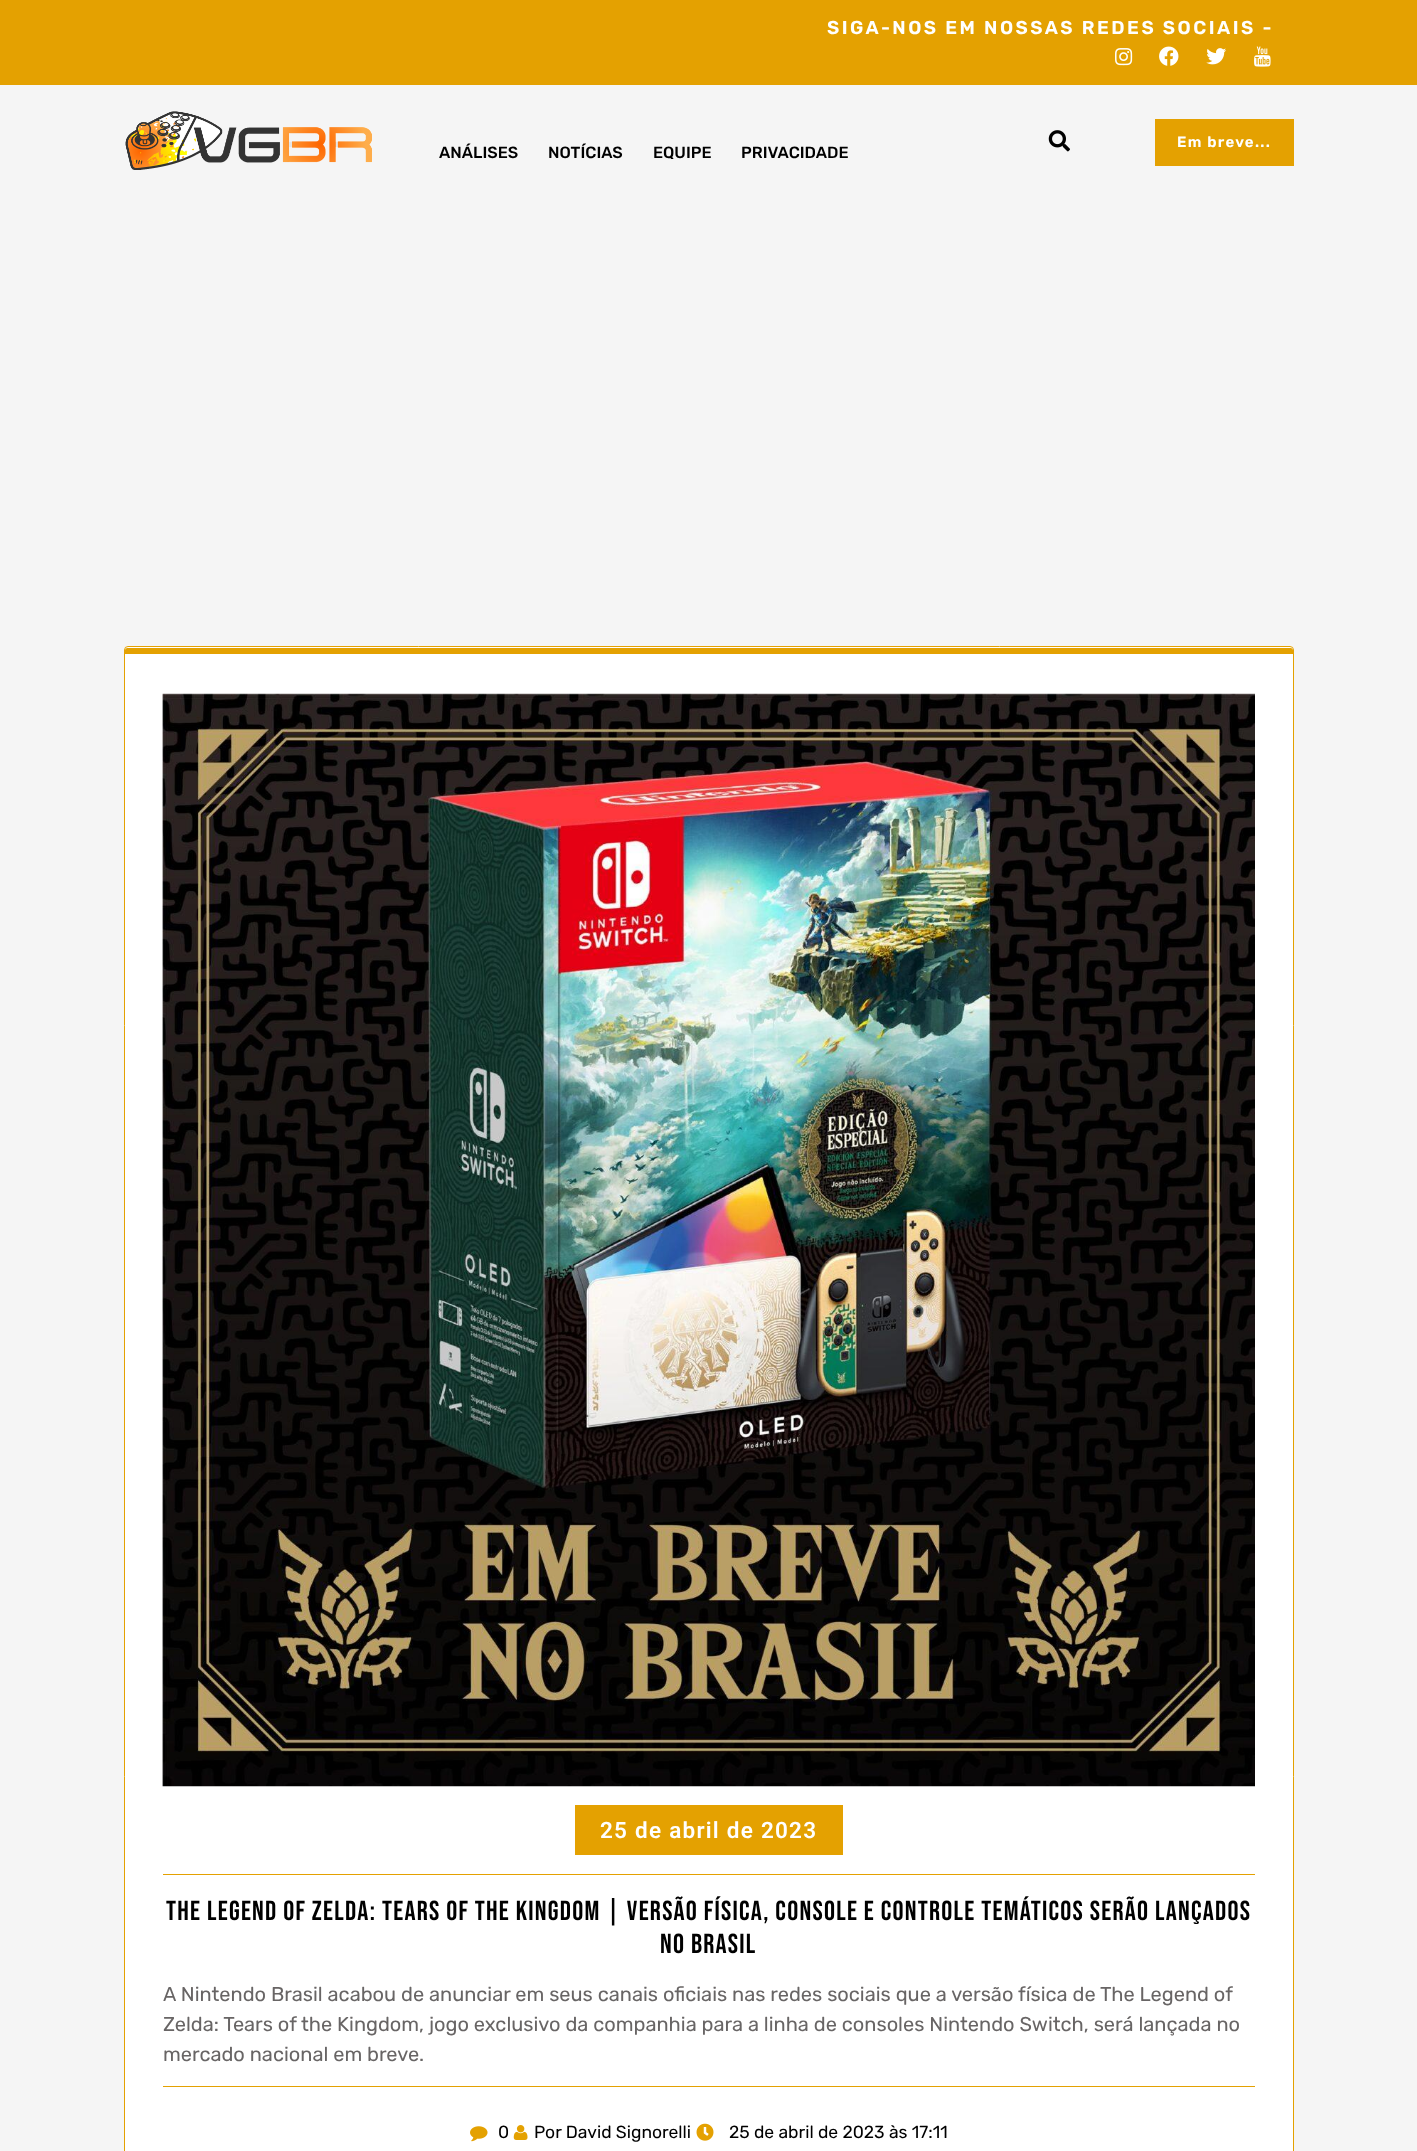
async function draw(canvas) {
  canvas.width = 1417
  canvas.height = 2151
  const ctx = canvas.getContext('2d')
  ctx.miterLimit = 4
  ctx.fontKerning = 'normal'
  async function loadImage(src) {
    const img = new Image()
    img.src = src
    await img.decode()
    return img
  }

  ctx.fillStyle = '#f5f5f5'
  ctx.fillRect(0, 0, 1417, 2151)
  ctx.fillStyle = '#e4a101'
  ctx.fillRect(0, 0, 1417, 85)
  ctx.letterSpacing = '2.5px'
  ctx.font = '600 18.75px Rubik'
  ctx.fillStyle = '#fff'
  ctx.fillText('SIGA-NOS EM NOSSAS REDES SOCIAIS -', 827, 34)
  ctx.drawImage(await loadImage('image0.png'), 1115, 48, 18, 18)
  ctx.drawImage(await loadImage('image1.png'), 1159, 46, 20, 20)
  ctx.drawImage(await loadImage('image2.png'), 1206, 48, 21, 17)
  ctx.drawImage(await loadImage('image3.png'), 1254, 46, 17, 21)
  ctx.drawImage(await loadImage('image4.png'), 125, 111, 247, 59)
  ctx.letterSpacing = '0px'
  ctx.font = '500 16.25px Rubik'
  ctx.fillStyle = '#000'
  ctx.fillText('ANÁLISES', 439, 158)
  ctx.fillText('NOTÍCIAS', 548, 158)
  ctx.fillText('EQUIPE', 653, 158)
  ctx.fillText('PRIVACIDADE', 741, 158)
  ctx.drawImage(await loadImage('image5.png'), 1048, 130, 22, 22)
  ctx.fillStyle = '#e4a101'
  ctx.fillRect(1155, 119, 139, 47)
  ctx.letterSpacing = '1.25px'
  ctx.font = '600 15px Rubik'
  ctx.fillStyle = '#fff'
  ctx.fillText('Em breve...', 1177, 147)
  ctx.beginPath()
  ctx.roundRect(124.5, 646.5, 1169, 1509, 3.5)
  ctx.fill()
  ctx.strokeStyle = '#e4a101'
  ctx.stroke()
  ctx.fillStyle = '#e4a101'
  ctx.beginPath()
  ctx.roundRect(125, 648, 1168, 6, [2.5, 2.5, 0, 0])
  ctx.fill()
  ctx.drawImage(await loadImage('image6.png'), 162, 693, 1093, 1094)
  ctx.fillRect(575, 1805, 268, 50)
  ctx.font = '600 22.5px Roboto'
  ctx.fillStyle = '#fff'
  ctx.fillText('25 de abril de 2023', 600, 1838)
  ctx.fillStyle = '#e4a101'
  ctx.fillRect(163, 1874, 1092, 1)
  ctx.font = '27.5px Bebas Neue'
  ctx.fillStyle = '#000'
  ctx.fillText('The Legend of Zelda: Tears of the Kingdom | Versão física, console e controle temáticos serão lançados', 166, 1920)
  ctx.fillText('no Brasil', 660, 1953)
  ctx.letterSpacing = '0px'
  ctx.font = '20px Rubik'
  ctx.fillStyle = '#686565'
  ctx.fillText('A Nintendo Brasil acabou de anunciar em seus canais oficiais nas redes sociais que a versão física de The Legend of', 163, 2001)
  ctx.fillText('Zelda: Tears of the Kingdom, jogo exclusivo da companhia para a linha de consoles Nintendo Switch, será lançada no', 163, 2031)
  ctx.fillText('mercado nacional em breve.', 163, 2061)
  ctx.fillStyle = '#e4a101'
  ctx.fillRect(163, 2086, 1092, 1)
  ctx.drawImage(await loadImage('image7.png'), 470, 2126, 18, 16)
  ctx.font = '17.5px Rubik'
  ctx.fillStyle = '#000'
  ctx.fillText('0', 498, 2138)
  ctx.drawImage(await loadImage('image8.png'), 513, 2125, 15, 15)
  ctx.fillText('Por David Signorelli', 534, 2138)
  ctx.drawImage(await loadImage('image9.png'), 696, 2123, 18, 18)
  ctx.fillText('25 de abril de 2023 às 17:11', 729, 2138)
}

draw(document.querySelector('canvas'))
